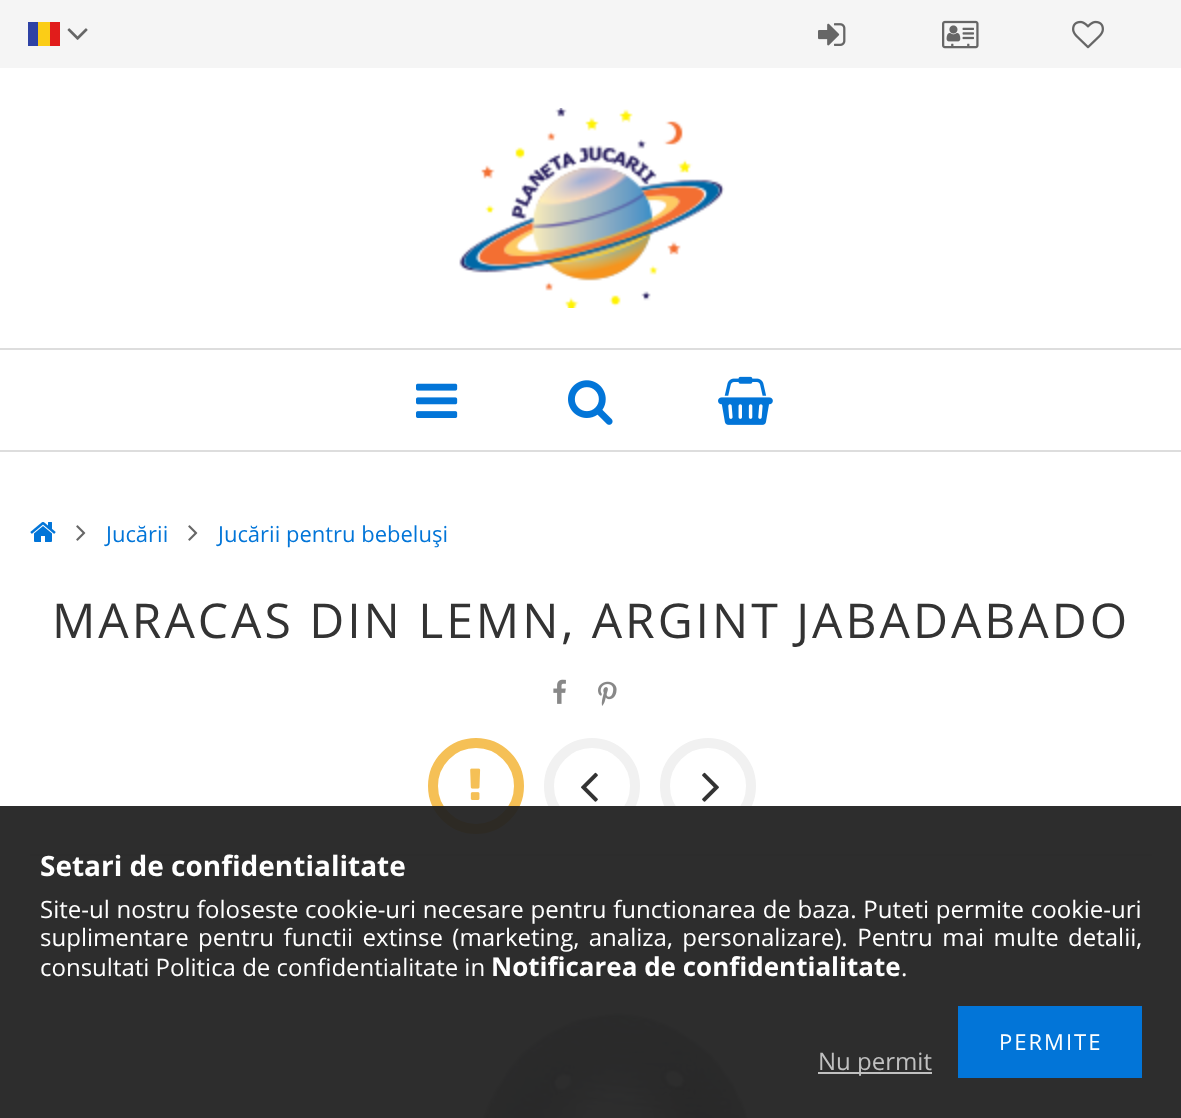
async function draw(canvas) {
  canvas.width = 1181
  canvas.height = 1118
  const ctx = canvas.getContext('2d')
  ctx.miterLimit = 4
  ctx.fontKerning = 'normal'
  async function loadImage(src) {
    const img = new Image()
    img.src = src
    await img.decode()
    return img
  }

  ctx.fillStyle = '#fff'
  ctx.fillRect(0, 0, 1181, 1118)
  ctx.fillStyle = '#f5f5f5'
  ctx.fillRect(0, 0, 1181, 68)
  ctx.drawImage(await loadImage('image0.png'), 28, 22, 32, 24)
  ctx.drawImage(await loadImage('image1.png'), 67, 28, 21, 12)
  ctx.drawImage(await loadImage('image2.png'), 818, 23, 28, 23)
  ctx.drawImage(await loadImage('image3.png'), 942, 20, 37, 29)
  ctx.drawImage(await loadImage('image4.png'), 1072, 20, 32, 29)
  ctx.drawImage(await loadImage('image5.png'), 459, 108, 266, 200)
  ctx.fillStyle = '#ddd'
  ctx.fillRect(0, 348, 1181, 2)
  ctx.fillRect(0, 450, 1181, 2)
  ctx.drawImage(await loadImage('image6.png'), 416, 383, 42, 35)
  ctx.drawImage(await loadImage('image7.png'), 568, 380, 45, 45)
  ctx.drawImage(await loadImage('image8.png'), 718, 376, 55, 49)
  ctx.drawImage(await loadImage('image9.png'), 30, 522, 26, 20)
  ctx.drawImage(await loadImage('image10.png'), 76, 525, 10, 16)
  ctx.font = '22px Open Sans'
  ctx.fillStyle = '#0275d8'
  ctx.fillText('Jucării', 106, 542)
  ctx.drawImage(await loadImage('image10.png'), 188, 525, 10, 16)
  ctx.fillText('Jucării pentru bebeluşi', 218, 542)
  ctx.fillStyle = '#ddd'
  ctx.fillRect(30, 854, 1122, 2)
  ctx.letterSpacing = '3px'
  ctx.font = '48px Open Sans'
  ctx.fillStyle = '#333'
  ctx.fillText('MARACAS DIN LEMN, ARGINT JABADABADO', 52, 638)
  ctx.drawImage(await loadImage('image11.png'), 553, 679, 13, 25)
  ctx.drawImage(await loadImage('image12.png'), 598, 681, 19, 25)
  ctx.beginPath()
  ctx.arc(476, 786, 43, 0, 2 * Math.PI)
  ctx.strokeStyle = '#f5c056'
  ctx.lineWidth = 10
  ctx.stroke()
  ctx.drawImage(await loadImage('image13.png'), 470, 768, 11, 32)
  ctx.beginPath()
  ctx.arc(592, 786, 43, 0, 2 * Math.PI)
  ctx.strokeStyle = '#f1f1f1'
  ctx.stroke()
  ctx.drawImage(await loadImage('image14.png'), 581, 772, 17, 30)
  ctx.beginPath()
  ctx.arc(708, 786, 43, 0, 2 * Math.PI)
  ctx.stroke()
  ctx.drawImage(await loadImage('image15.png'), 702, 772, 17, 30)
  ctx.drawImage(await loadImage('image16.png'), 477, 1004, 274, 114)
  ctx.fillStyle = '#222222f2'
  ctx.fillRect(0, 806, 1181, 312)
  ctx.letterSpacing = '0px'
  ctx.font = 'bold 28px Open Sans'
  ctx.fillStyle = '#fff'
  ctx.fillText('Setari de confidentialitate', 40, 876)
  ctx.wordSpacing = '0.5px'
  ctx.font = '24px Open Sans'
  ctx.fillText('Site-ul nostru foloseste cookie-uri necesare pentru functionarea de baza. Puteti permite cookie-uri', 40, 918)
  ctx.wordSpacing = '3.25px'
  ctx.fillText('suplimentare pentru functii extinse (marketing, analiza, personalizare). Pentru mai multe detalii,', 40, 946)
  ctx.wordSpacing = '0px'
  ctx.fillText('consultati Politica de confidentialitate in', 40, 976)
  ctx.font = 'bold 26px Open Sans'
  ctx.fillText('Notificarea de confidentialitate', 491, 976)
  ctx.font = '24px Open Sans'
  ctx.fillText('.', 901, 976)
  ctx.fillStyle = '#0275d8'
  ctx.fillRect(958, 1006, 184, 72)
  ctx.letterSpacing = '2px'
  ctx.font = '22px Open Sans'
  ctx.fillStyle = '#fff'
  ctx.fillText('PERMITE', 999, 1050)
  ctx.fillStyle = '#c0c0c0'
  ctx.fillRect(818, 1072, 114, 2)
  ctx.letterSpacing = '0px'
  ctx.font = '24px Open Sans'
  ctx.fillText('Nu permit', 818, 1070)
}

draw(document.querySelector('canvas'))
